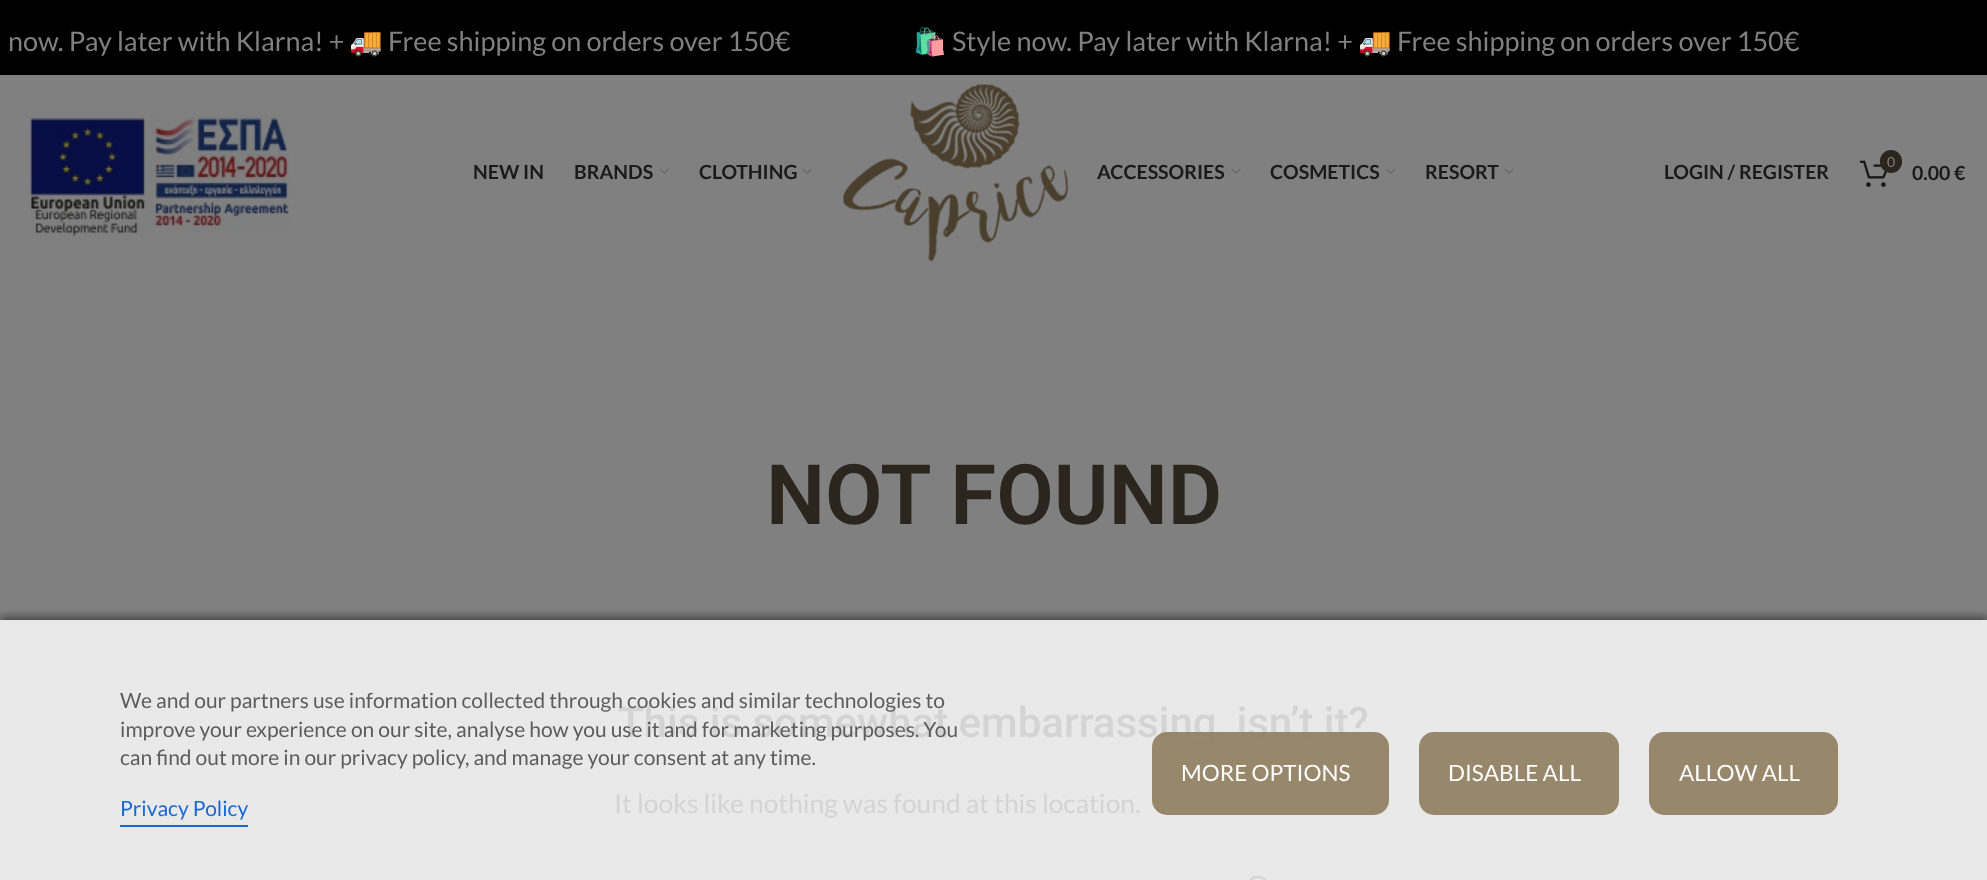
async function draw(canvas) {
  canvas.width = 1987
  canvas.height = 880
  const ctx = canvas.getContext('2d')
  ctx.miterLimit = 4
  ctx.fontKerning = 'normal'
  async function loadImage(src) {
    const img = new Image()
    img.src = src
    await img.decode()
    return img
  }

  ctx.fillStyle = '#808080'
  ctx.fillRect(0, 0, 1987, 880)
  ctx.fillStyle = '#e9e9e9'
  ctx.fillRect(0, 620, 1987, 260)
  ctx.fillStyle = '#000'
  ctx.fillRect(0, 0, 1987, 75)
  ctx.font = '27px Lato'
  ctx.fillStyle = '#808080'
  ctx.fillText('now. Pay later with Klarna! +', 8, 51)
  ctx.font = '27px Noto Color Emoji'
  ctx.fillText('🚚', 349, 51)
  ctx.font = '27px Lato'
  ctx.fillText('Free shipping on orders over 150€', 388, 51)
  ctx.font = '27px Noto Color Emoji'
  ctx.fillText('🛍️', 913, 51)
  ctx.font = '27px Lato'
  ctx.fillText('Style now. Pay later with Klarna! +', 952, 51)
  ctx.font = '27px Noto Color Emoji'
  ctx.fillText('🚚', 1358, 51)
  ctx.font = '27px Lato'
  ctx.fillText('Free shipping on orders over 150€', 1397, 51)
  ctx.drawImage(await loadImage('image0.png'), 29, 114, 260, 122)
  ctx.font = 'bold 19.5px Lato'
  ctx.fillStyle = '#1a1a1a'
  ctx.fillText('NEW IN', 473, 179)
  ctx.fillText('BRANDS', 574, 179)
  ctx.drawImage(await loadImage('image1.png'), 660, 168, 9, 6)
  ctx.fillText('CLOTHING', 699, 179)
  ctx.drawImage(await loadImage('image2.png'), 802, 168, 10, 6)
  ctx.drawImage(await loadImage('image3.png'), 843, 84, 226, 178)
  ctx.fillText('ACCESSORIES', 1097, 179)
  ctx.drawImage(await loadImage('image2.png'), 1231, 168, 10, 6)
  ctx.fillText('COSMETICS', 1270, 179)
  ctx.drawImage(await loadImage('image1.png'), 1386, 168, 9, 6)
  ctx.fillText('RESORT', 1425, 179)
  ctx.drawImage(await loadImage('image2.png'), 1504, 168, 10, 6)
  ctx.fillText('LOGIN / REGISTER', 1664, 179)
  ctx.drawImage(await loadImage('image4.png'), 1860, 160, 27, 27)
  ctx.fillStyle = '#2b251e'
  ctx.beginPath()
  ctx.roundRect(1880, 150, 22, 23, 11)
  ctx.fill()
  ctx.font = '14px Lato'
  ctx.fillStyle = '#808080'
  ctx.fillText('0', 1887, 167)
  ctx.font = 'bold 19.5px Lato'
  ctx.fillStyle = '#1a1a1a'
  ctx.fillText('0.00 €', 1912, 180)
  ctx.font = '600 83.5px Roboto'
  ctx.fillStyle = '#2b251e'
  ctx.fillText('NOT FOUND', 766, 524)
  ctx.font = '500 42px Roboto'
  ctx.fillStyle = '#d4d4d4'
  ctx.fillText('This is somewhat embarrassing, isn’t it?', 618, 737)
  ctx.font = '26.4px Lato'
  ctx.fillText('It looks like nothing was found at this location.', 614, 813)
  ctx.drawImage(await loadImage('image5.png'), 1248, 875, 19, 5)
  ctx.save()
  ctx.beginPath()
  ctx.rect(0, 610, 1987, 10)
  ctx.clip()
  ctx.fillStyle = '#00000080'
  ctx.filter = 'blur(4px)'
  ctx.beginPath()
  ctx.rect(0, 617, 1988, 261)
  ctx.fill()
  ctx.filter = 'none'
  ctx.restore()
  ctx.font = '21px Lato'
  ctx.fillStyle = '#5d5d5d'
  ctx.fillText('We and our partners use information collected through cookies and similar technologies to', 120, 708)
  ctx.fillText('improve your experience on our site, analyse how you use it and for marketing purposes. You', 120, 737)
  ctx.fillText('can find out more in our privacy policy, and manage your consent at any time.', 120, 765)
  ctx.fillStyle = '#1769d5'
  ctx.fillText('Privacy Policy', 120, 816)
  ctx.fillRect(120, 825, 128, 2)
  ctx.fillStyle = '#8f7d5de6'
  ctx.beginPath()
  ctx.roundRect(1152, 732, 237, 83, 15)
  ctx.fill()
  ctx.font = '22.5px Lato'
  ctx.fillStyle = '#fdfdfd'
  ctx.fillText('MORE OPTIONS', 1181, 781)
  ctx.fillStyle = '#98886b'
  ctx.beginPath()
  ctx.roundRect(1419, 732, 200, 83, 15)
  ctx.fill()
  ctx.fillStyle = '#fdfdfd'
  ctx.fillText('DISABLE ALL', 1448, 781)
  ctx.fillStyle = '#98886b'
  ctx.beginPath()
  ctx.roundRect(1649, 732, 189, 83, 15)
  ctx.fill()
  ctx.fillStyle = '#fdfdfd'
  ctx.fillText('ALLOW ALL', 1679, 781)
}

draw(document.querySelector('canvas'))
